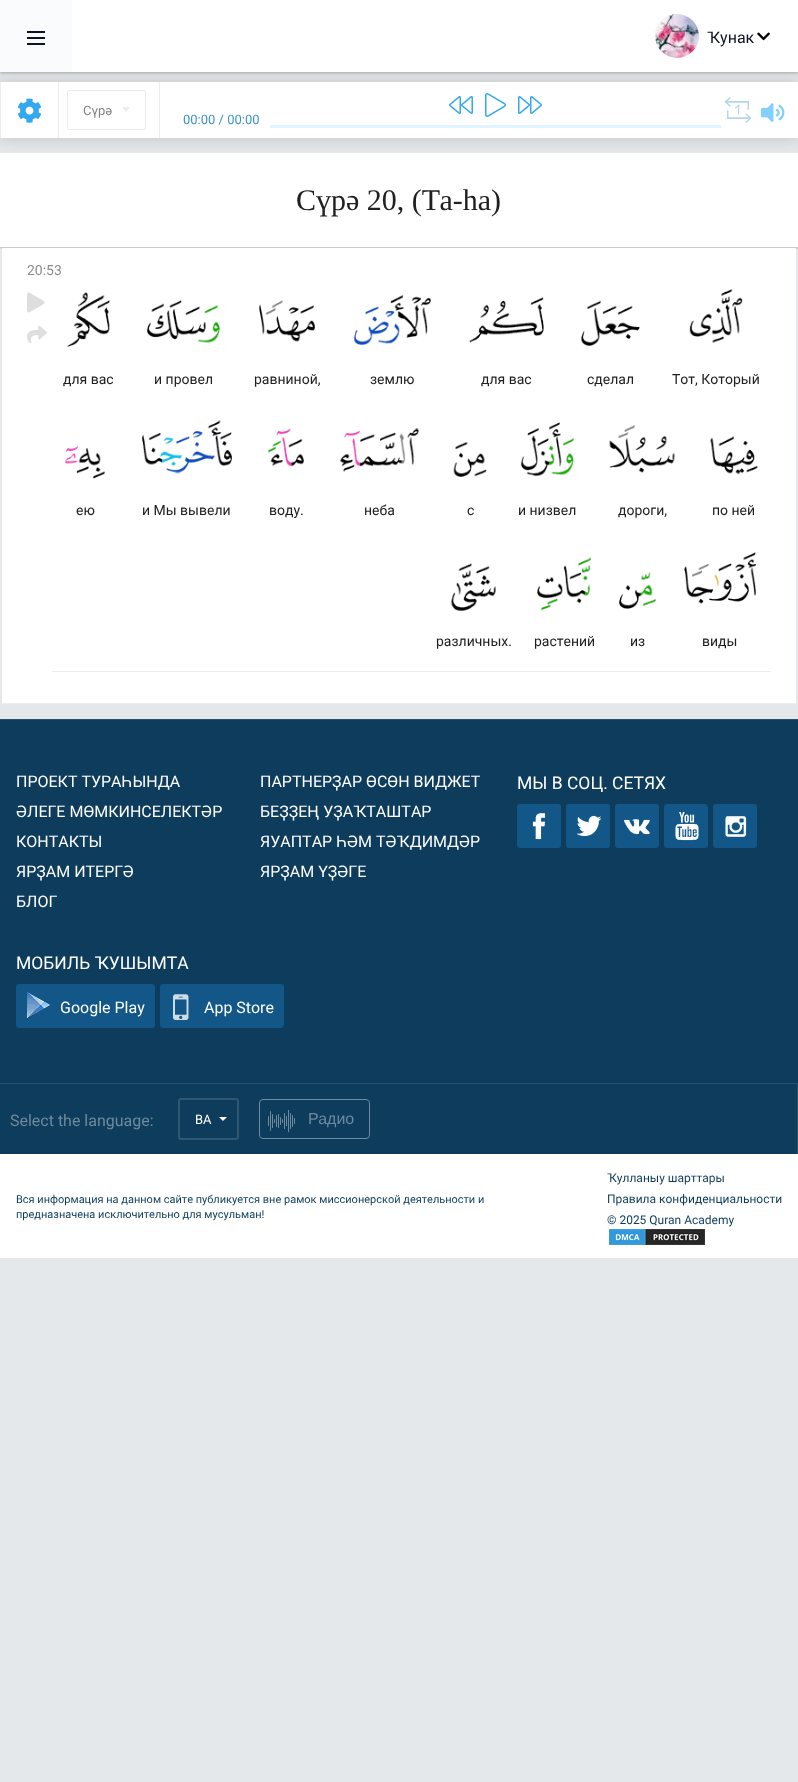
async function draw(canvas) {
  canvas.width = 798
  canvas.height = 1782
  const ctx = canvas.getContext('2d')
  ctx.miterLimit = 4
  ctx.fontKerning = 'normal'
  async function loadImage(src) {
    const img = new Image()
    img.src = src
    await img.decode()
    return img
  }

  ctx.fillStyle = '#e5e8eb'
  ctx.fillRect(0, 0, 798, 1782)
  ctx.fillStyle = '#00000033'
  ctx.filter = 'blur(1px)'
  ctx.beginPath()
  ctx.rect(0, 1, 798, 72)
  ctx.fill()
  ctx.filter = 'none'
  ctx.fillStyle = '#aaaaaa80'
  ctx.filter = 'blur(2px)'
  ctx.beginPath()
  ctx.rect(0, 1, 798, 72)
  ctx.fill()
  ctx.filter = 'none'
  ctx.fillStyle = '#0000001a'
  ctx.filter = 'blur(0.5px)'
  ctx.beginPath()
  ctx.rect(1, 154, 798, 95)
  ctx.fill()
  ctx.filter = 'none'
  ctx.fillStyle = '#fff'
  ctx.fillRect(0, 153, 798, 94)
  ctx.fillStyle = '#00000026'
  ctx.filter = 'blur(7.5px)'
  ctx.beginPath()
  ctx.rect(-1, 81, 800, 58)
  ctx.fill()
  ctx.filter = 'none'
  ctx.fillStyle = '#fff'
  ctx.fillRect(72, 0, 726, 72)
  ctx.fillStyle = '#fafbfc'
  ctx.fillRect(0, 0, 72, 72)
  ctx.fillStyle = '#0d1322'
  ctx.fillRect(27, 31, 18, 2)
  ctx.fillRect(27, 37, 18, 2)
  ctx.fillRect(27, 43, 18, 2)
  ctx.drawImage(await loadImage('image0.png'), 655, 14, 44, 44)
  ctx.font = '16px Roboto'
  ctx.fillText('Ҡунак', 707, 43)
  ctx.drawImage(await loadImage('image1.png'), 757, 32, 13, 9)
  ctx.fillStyle = '#fff'
  ctx.fillRect(1, 82, 797, 56)
  ctx.fillStyle = '#ececec'
  ctx.fillRect(58, 82, 1, 56)
  ctx.fillRect(0, 82, 1, 56)
  ctx.drawImage(await loadImage('image2.png'), 17, 98, 25, 25)
  ctx.beginPath()
  ctx.roundRect(67.5, 90.5, 78, 39, 1.5)
  ctx.strokeStyle = '#ececec'
  ctx.stroke()
  ctx.font = '13px Roboto'
  ctx.fillStyle = '#828282'
  ctx.fillText('Сүрә', 83, 115)
  ctx.fillStyle = '#ececec'
  ctx.beginPath()
  ctx.moveTo(122, 107)
  ctx.lineTo(130, 107)
  ctx.lineTo(126, 112)
  ctx.closePath()
  ctx.fill()
  ctx.fillRect(159, 82, 1, 56)
  ctx.fillStyle = '#3993c9'
  ctx.fillText('00:00 / 00:00', 183, 124)
  ctx.drawImage(await loadImage('image3.png'), 449, 96, 24, 18)
  ctx.drawImage(await loadImage('image4.png'), 485, 93, 21, 24)
  ctx.drawImage(await loadImage('image5.png'), 518, 96, 24, 18)
  ctx.fillStyle = '#e0f5ff'
  ctx.fillRect(270, 125, 451, 3)
  ctx.drawImage(await loadImage('image6.png'), 725, 97, 26, 26)
  ctx.drawImage(await loadImage('image7.png'), 761, 103, 24, 19)
  ctx.fillStyle = '#ccc'
  ctx.fillRect(0, 247, 798, 1)
  ctx.font = '30px Liberation Serif'
  ctx.fillStyle = '#202020'
  ctx.fillText('Сүрә 20, (Та-һа)', 296, 210)
  ctx.fillStyle = '#fff'
  ctx.fillRect(2, 248, 794, 455)
  ctx.fillStyle = '#eee'
  ctx.fillRect(2, 703, 794, 1)
  ctx.font = '14px Roboto'
  ctx.fillStyle = '#8c8c8c'
  ctx.fillText('20:53', 27, 275)
  ctx.drawImage(await loadImage('image8.png'), 27, 292, 18, 21)
  ctx.drawImage(await loadImage('image9.png'), 27, 325, 20, 19)
  ctx.drawImage(await loadImage('image10.png'), 67, 292, 43, 55)
  ctx.fillStyle = '#202020'
  ctx.fillText('для вас', 63, 384)
  ctx.drawImage(await loadImage('image11.png'), 147, 300, 73, 43)
  ctx.fillText('и провел', 154, 384)
  ctx.drawImage(await loadImage('image12.png'), 259, 300, 56, 42)
  ctx.fillText('равниной,', 254, 384)
  ctx.drawImage(await loadImage('image13.png'), 354, 294, 77, 52)
  ctx.fillText('землю', 370, 384)
  ctx.drawImage(await loadImage('image14.png'), 469, 297, 75, 46)
  ctx.fillText('для вас', 481, 384)
  ctx.drawImage(await loadImage('image15.png'), 581, 300, 59, 46)
  ctx.fillText('сделал', 587, 384)
  ctx.drawImage(await loadImage('image16.png'), 689, 289, 54, 54)
  ctx.fillText('Тот, Который', 672, 384)
  ctx.drawImage(await loadImage('image17.png'), 65, 445, 40, 34)
  ctx.fillText('ею', 76, 515)
  ctx.drawImage(await loadImage('image18.png'), 142, 420, 90, 54)
  ctx.fillText('и Мы вывели', 142, 515)
  ctx.drawImage(await loadImage('image19.png'), 268, 428, 36, 39)
  ctx.fillText('воду.', 269, 515)
  ctx.drawImage(await loadImage('image20.png'), 340, 428, 79, 44)
  ctx.fillText('неба', 364, 515)
  ctx.drawImage(await loadImage('image21.png'), 453, 442, 34, 35)
  ctx.fillText('с', 467, 515)
  ctx.drawImage(await loadImage('image22.png'), 520, 422, 55, 55)
  ctx.fillText('и низвел', 518, 515)
  ctx.drawImage(await loadImage('image23.png'), 609, 424, 66, 49)
  ctx.fillText('дороги,', 618, 515)
  ctx.drawImage(await loadImage('image24.png'), 710, 436, 48, 39)
  ctx.fillText('по ней', 712, 515)
  ctx.drawImage(await loadImage('image25.png'), 451, 563, 45, 48)
  ctx.fillText('различных.', 436, 646)
  ctx.drawImage(await loadImage('image26.png'), 537, 557, 54, 54)
  ctx.fillText('растений', 534, 646)
  ctx.drawImage(await loadImage('image27.png'), 619, 572, 37, 37)
  ctx.fillText('из', 630, 646)
  ctx.drawImage(await loadImage('image28.png'), 684, 552, 72, 52)
  ctx.fillText('виды', 702, 646)
  ctx.fillStyle = '#eee'
  ctx.fillRect(52, 671, 719, 1)
  ctx.fillStyle = '#0e3c5c'
  ctx.fillRect(0, 720, 798, 363)
  ctx.fillStyle = '#27506d'
  ctx.fillRect(0, 719, 798, 1)
  ctx.font = '16px Roboto'
  ctx.fillStyle = '#fff'
  ctx.fillText('ПРОЕКТ ТУРАҺЫНДА', 16, 787)
  ctx.fillText('ӘЛЕГЕ МӨМКИНСЕЛЕКТӘР', 16, 817)
  ctx.fillText('КОНТАКТЫ', 16, 847)
  ctx.fillText('ЯРҘАМ ИТЕРГӘ', 16, 877)
  ctx.fillText('БЛОГ', 16, 907)
  ctx.fillText('ПАРТНЕРҘАР ӨСӨН ВИДЖЕТ', 260, 787)
  ctx.fillText('БЕҘҘЕҢ УҘАҠТАШТАР', 260, 817)
  ctx.fillText('ЯУАПТАР ҺӘМ ТӘҠДИМДӘР', 260, 847)
  ctx.fillText('ЯРҘАМ ҮҘӘГЕ', 260, 877)
  ctx.font = '17.5px Roboto'
  ctx.fillText('МЫ В СОЦ. СЕТЯХ', 517, 789)
  ctx.fillStyle = '#125788'
  ctx.beginPath()
  ctx.roundRect(517, 804, 44, 44, 3)
  ctx.fill()
  ctx.drawImage(await loadImage('image29.png'), 532, 813, 14, 27)
  ctx.beginPath()
  ctx.roundRect(566, 804, 44, 44, 3)
  ctx.fill()
  ctx.drawImage(await loadImage('image30.png'), 577, 815, 25, 22)
  ctx.beginPath()
  ctx.roundRect(615, 804, 44, 44, 3)
  ctx.fill()
  ctx.drawImage(await loadImage('image31.png'), 624, 819, 26, 16)
  ctx.beginPath()
  ctx.roundRect(664, 804, 44, 44, 3)
  ctx.fill()
  ctx.drawImage(await loadImage('image32.png'), 675, 811, 24, 30)
  ctx.beginPath()
  ctx.roundRect(713, 804, 44, 44, 3)
  ctx.fill()
  ctx.drawImage(await loadImage('image33.png'), 725, 816, 22, 21)
  ctx.fillStyle = '#fff'
  ctx.fillText('МОБИЛЬ ҠУШЫМТА', 16, 969)
  ctx.fillStyle = '#125788'
  ctx.beginPath()
  ctx.roundRect(16, 984, 139, 44, 3)
  ctx.fill()
  ctx.drawImage(await loadImage('image34.png'), 27, 992, 23, 27)
  ctx.font = '16px Roboto'
  ctx.fillStyle = '#fff'
  ctx.fillText('Google Play', 60, 1013)
  ctx.fillStyle = '#125788'
  ctx.beginPath()
  ctx.roundRect(160, 984, 124, 44, 3)
  ctx.fill()
  ctx.drawImage(await loadImage('image35.png'), 173, 994, 16, 26)
  ctx.fillStyle = '#fff'
  ctx.fillText('App Store', 204, 1013)
  ctx.fillStyle = '#0e3c5c'
  ctx.fillRect(0, 1084, 797, 70)
  ctx.fillStyle = '#27506d'
  ctx.fillRect(0, 1083, 798, 1)
  ctx.fillRect(797, 1084, 1, 70)
  ctx.fillStyle = '#6e8a9d'
  ctx.fillText('Select the language:', 10, 1126)
  ctx.beginPath()
  ctx.roundRect(179, 1099, 59, 40, 2)
  ctx.strokeStyle = '#325771'
  ctx.lineWidth = 2
  ctx.stroke()
  ctx.font = '13px Roboto'
  ctx.fillStyle = '#fff'
  ctx.fillText('BA', 195, 1124)
  ctx.beginPath()
  ctx.moveTo(219, 1117)
  ctx.lineTo(227, 1117)
  ctx.lineTo(223, 1121)
  ctx.closePath()
  ctx.fill()
  ctx.beginPath()
  ctx.roundRect(259.5, 1099.5, 110, 39, 3.5)
  ctx.strokeStyle = '#6e8a9d'
  ctx.lineWidth = 1
  ctx.stroke()
  ctx.drawImage(await loadImage('image36.png'), 268, 1110, 27, 22)
  ctx.font = '16px Liberation Sans'
  ctx.fillStyle = '#6e8a9d'
  ctx.fillText('Радио', 308, 1124)
  ctx.fillStyle = '#fff'
  ctx.fillRect(0, 1154, 798, 104)
  ctx.font = '11px Roboto'
  ctx.fillStyle = '#0e3c5c'
  ctx.fillText('Вся информация на данном сайте публикуется вне рамок миссионерской деятельности и', 16, 1203)
  ctx.fillText('предназначена исключительно для мусульман!', 16, 1218)
  ctx.font = '12px Roboto'
  ctx.fillText('Ҡулланыу шарттары', 607, 1182)
  ctx.fillText('Правила конфиденциальности', 607, 1203)
  ctx.fillText('© 2025 Quran Academy', 607, 1224)
  ctx.drawImage(await loadImage('image37.png'), 609, 1229, 96, 16)
}

draw(document.querySelector('canvas'))
